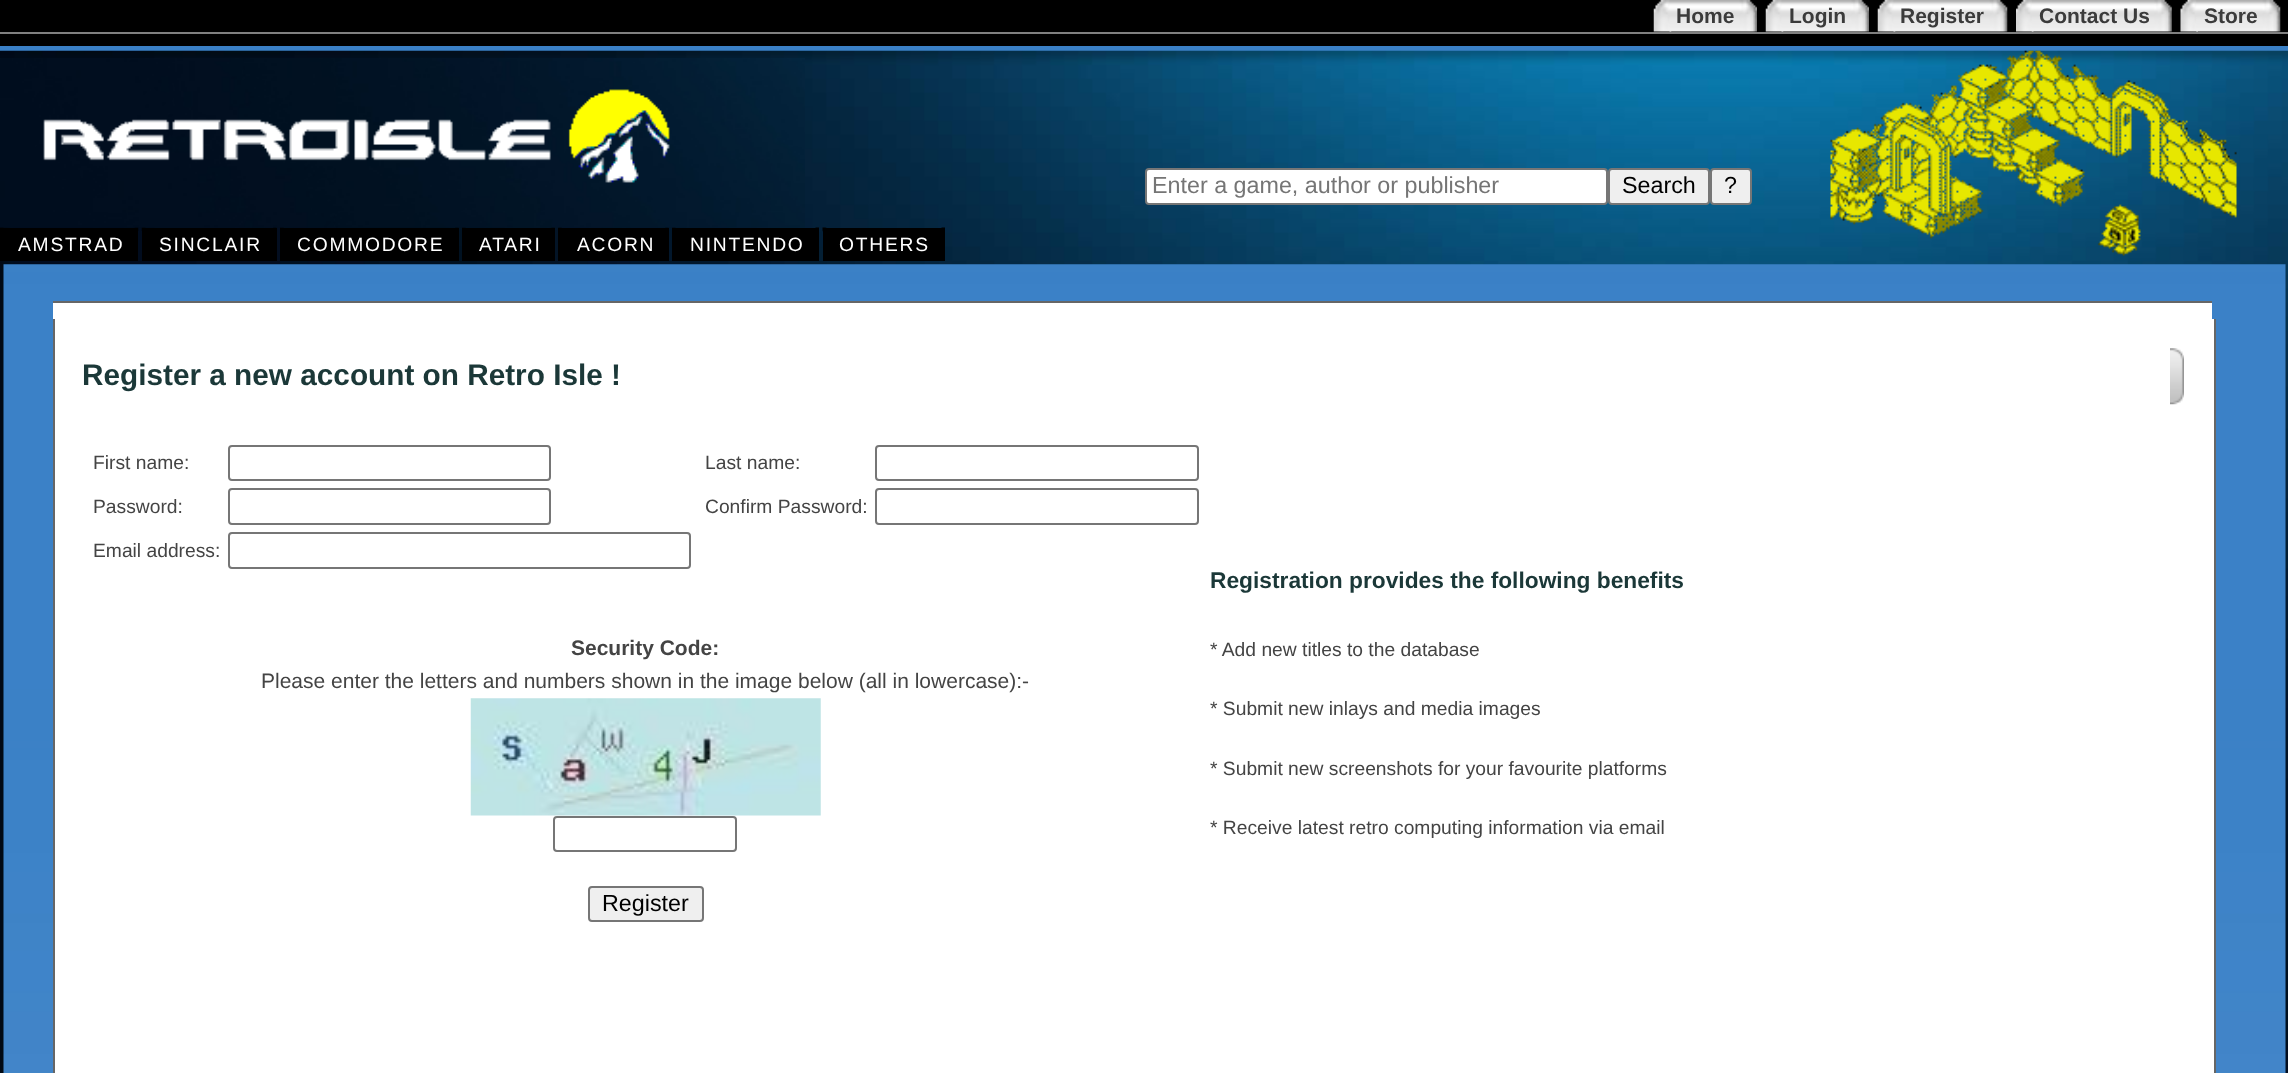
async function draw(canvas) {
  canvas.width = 2288
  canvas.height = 1073
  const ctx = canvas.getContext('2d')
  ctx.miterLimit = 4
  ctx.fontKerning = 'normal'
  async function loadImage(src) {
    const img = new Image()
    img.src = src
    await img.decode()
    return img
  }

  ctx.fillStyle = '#3a80c6'
  ctx.fillRect(0, 0, 2288, 1073)
  ctx.fillStyle = '#000'
  ctx.fillRect(0, 0, 2288, 46)
  ctx.fillStyle = '#808080'
  ctx.fillRect(0, 32, 2288, 2)
  ctx.drawImage(await loadImage('image0.png'), 1653, 0, 19, 32)
  ctx.drawImage(await loadImage('image1.png'), 1669, 0, 88, 32)
  ctx.font = 'bold 21px Liberation Sans'
  ctx.fillStyle = '#3b3b3b'
  ctx.fillText('Home', 1676, 23)
  ctx.drawImage(await loadImage('image0.png'), 1765, 0, 19, 32)
  ctx.drawImage(await loadImage('image2.png'), 1781, 0, 88, 32)
  ctx.fillText('Login', 1789, 23)
  ctx.drawImage(await loadImage('image3.png'), 1877, 0, 19, 32)
  ctx.drawImage(await loadImage('image4.png'), 1893, 0, 115, 32)
  ctx.fillText('Register', 1900, 23)
  ctx.drawImage(await loadImage('image5.png'), 2016, 0, 18, 32)
  ctx.drawImage(await loadImage('image6.png'), 2031, 0, 141, 32)
  ctx.fillText('Contact Us', 2039, 23)
  ctx.drawImage(await loadImage('image7.png'), 2180, 0, 18, 32)
  ctx.drawImage(await loadImage('image8.png'), 2196, 0, 85, 32)
  ctx.fillText('Store', 2204, 23)
  ctx.drawImage(await loadImage('image9.png'), 0, 50, 2288, 1023)
  ctx.fillStyle = '#fff'
  ctx.beginPath()
  ctx.roundRect(1146, 169, 461, 35, 3)
  ctx.fill()
  ctx.strokeStyle = '#767676'
  ctx.lineWidth = 2
  ctx.stroke()
  ctx.font = '23.3px Liberation Sans'
  ctx.fillStyle = '#757575'
  ctx.fillText('Enter a game, author or publisher', 1152, 193)
  ctx.fillStyle = '#efefef'
  ctx.beginPath()
  ctx.roundRect(1609, 169, 100, 35, 3)
  ctx.fill()
  ctx.stroke()
  ctx.fillStyle = '#000'
  ctx.fillText('Search', 1622, 193)
  ctx.fillStyle = '#efefef'
  ctx.beginPath()
  ctx.roundRect(1711, 169, 40, 35, 3)
  ctx.fill()
  ctx.stroke()
  ctx.fillStyle = '#000'
  ctx.fillText('?', 1724, 193)
  ctx.drawImage(await loadImage('image10.png'), 1830, 50, 407, 206)
  ctx.drawImage(await loadImage('image12.png'), 0, 227, 4, 1)
  ctx.fillRect(0, 228, 138, 33)
  ctx.drawImage(await loadImage('image13.png'), 134, 227, 5, 4)
  ctx.fillRect(142, 228, 135, 33)
  ctx.drawImage(await loadImage('image14.png'), 141, 227, 5, 4)
  ctx.drawImage(await loadImage('image15.png'), 273, 227, 4, 1)
  ctx.drawImage(await loadImage('image16.png'), 280, 227, 4, 1)
  ctx.drawImage(await loadImage('image17.png'), 455, 227, 4, 1)
  ctx.drawImage(await loadImage('image18.png'), 462, 227, 4, 1)
  ctx.drawImage(await loadImage('image19.png'), 551, 227, 4, 1)
  ctx.drawImage(await loadImage('image20.png'), 558, 227, 4, 1)
  ctx.drawImage(await loadImage('image21.png'), 665, 227, 4, 1)
  ctx.drawImage(await loadImage('image22.png'), 672, 227, 4, 1)
  ctx.drawImage(await loadImage('image11.png'), 0, 58, 805, 170)
  ctx.letterSpacing = '1.75px'
  ctx.font = '19.25px Liberation Sans'
  ctx.fillStyle = '#fff'
  ctx.fillText('AMSTRAD', 18, 251)
  ctx.fillText('SINCLAIR', 159, 251)
  ctx.fillStyle = '#000'
  ctx.fillRect(280, 228, 179, 33)
  ctx.fillStyle = '#fff'
  ctx.fillText('COMMODORE', 297, 251)
  ctx.fillStyle = '#000'
  ctx.fillRect(462, 228, 93, 33)
  ctx.fillStyle = '#fff'
  ctx.fillText('ATARI', 479, 251)
  ctx.fillStyle = '#000'
  ctx.fillRect(558, 228, 111, 33)
  ctx.fillStyle = '#fff'
  ctx.fillText('ACORN', 577, 251)
  ctx.fillStyle = '#000'
  ctx.fillRect(672, 228, 147, 33)
  ctx.drawImage(await loadImage('image23.png'), 815, 227, 4, 1)
  ctx.fillStyle = '#fff'
  ctx.fillText('NINTENDO', 690, 251)
  ctx.fillStyle = '#000'
  ctx.fillRect(823, 228, 122, 33)
  ctx.drawImage(await loadImage('image24.png'), 822, 227, 5, 5)
  ctx.drawImage(await loadImage('image25.png'), 941, 227, 4, 1)
  ctx.fillStyle = '#fff'
  ctx.fillText('OTHERS', 839, 251)
  ctx.drawImage(await loadImage('image26.png'), 3, 264, 2283, 809)
  ctx.fillRect(53, 303, 2159, 16)
  ctx.fillStyle = '#666'
  ctx.fillRect(53, 301, 2159, 2)
  ctx.fillStyle = '#fff'
  ctx.fillRect(55, 319, 2159, 754)
  ctx.fillStyle = '#666'
  ctx.fillRect(2214, 319, 2, 754)
  ctx.fillRect(53, 319, 2, 754)
  ctx.letterSpacing = '0px'
  ctx.font = 'bold 29.75px Liberation Sans'
  ctx.fillStyle = '#1b3838'
  ctx.fillText('Register a new account on Retro Isle !', 82, 385)
  ctx.drawImage(await loadImage('image27.png'), 2170, 348, 14, 57)
  ctx.font = '19.25px Liberation Sans'
  ctx.fillStyle = '#444'
  ctx.fillText('First name:', 93, 469)
  ctx.beginPath()
  ctx.roundRect(229, 446, 321, 34, 3)
  ctx.stroke()
  ctx.fillText('Last name:', 705, 469)
  ctx.beginPath()
  ctx.roundRect(876, 446, 322, 34, 3)
  ctx.stroke()
  ctx.fillText('Password:', 93, 513)
  ctx.beginPath()
  ctx.roundRect(229, 489, 321, 35, 3)
  ctx.stroke()
  ctx.fillText('Confirm Password:', 705, 513)
  ctx.beginPath()
  ctx.roundRect(876, 489, 322, 35, 3)
  ctx.stroke()
  ctx.fillText('Email address:', 93, 557)
  ctx.beginPath()
  ctx.roundRect(229, 533, 461, 35, 3)
  ctx.stroke()
  ctx.font = 'bold 21px Liberation Sans'
  ctx.fillText('Security Code:', 571, 655)
  ctx.font = '21px Liberation Sans'
  ctx.fillText('Please enter the letters and numbers shown in the image below (all in lowercase):-', 261, 688)
  ctx.drawImage(await loadImage('image28.png'), 470, 698, 351, 118)
  ctx.beginPath()
  ctx.roundRect(554, 817, 182, 34, 3)
  ctx.stroke()
  ctx.fillStyle = '#efefef'
  ctx.beginPath()
  ctx.roundRect(589, 887, 114, 34, 3)
  ctx.fill()
  ctx.stroke()
  ctx.font = '23.3px Liberation Sans'
  ctx.fillStyle = '#000'
  ctx.fillText('Register', 602, 911)
  ctx.font = 'bold 22.75px Liberation Sans'
  ctx.fillStyle = '#1b3838'
  ctx.fillText('Registration provides the following benefits', 1210, 588)
  ctx.font = '19.25px Liberation Sans'
  ctx.fillStyle = '#444'
  ctx.fillText('* Add new titles to the database', 1210, 656)
  ctx.fillText('* Submit new inlays and media images', 1210, 715)
  ctx.fillText('* Submit new screenshots for your favourite platforms', 1210, 775)
  ctx.fillText('* Receive latest retro computing information via email', 1210, 834)
}

draw(document.querySelector('canvas'))
